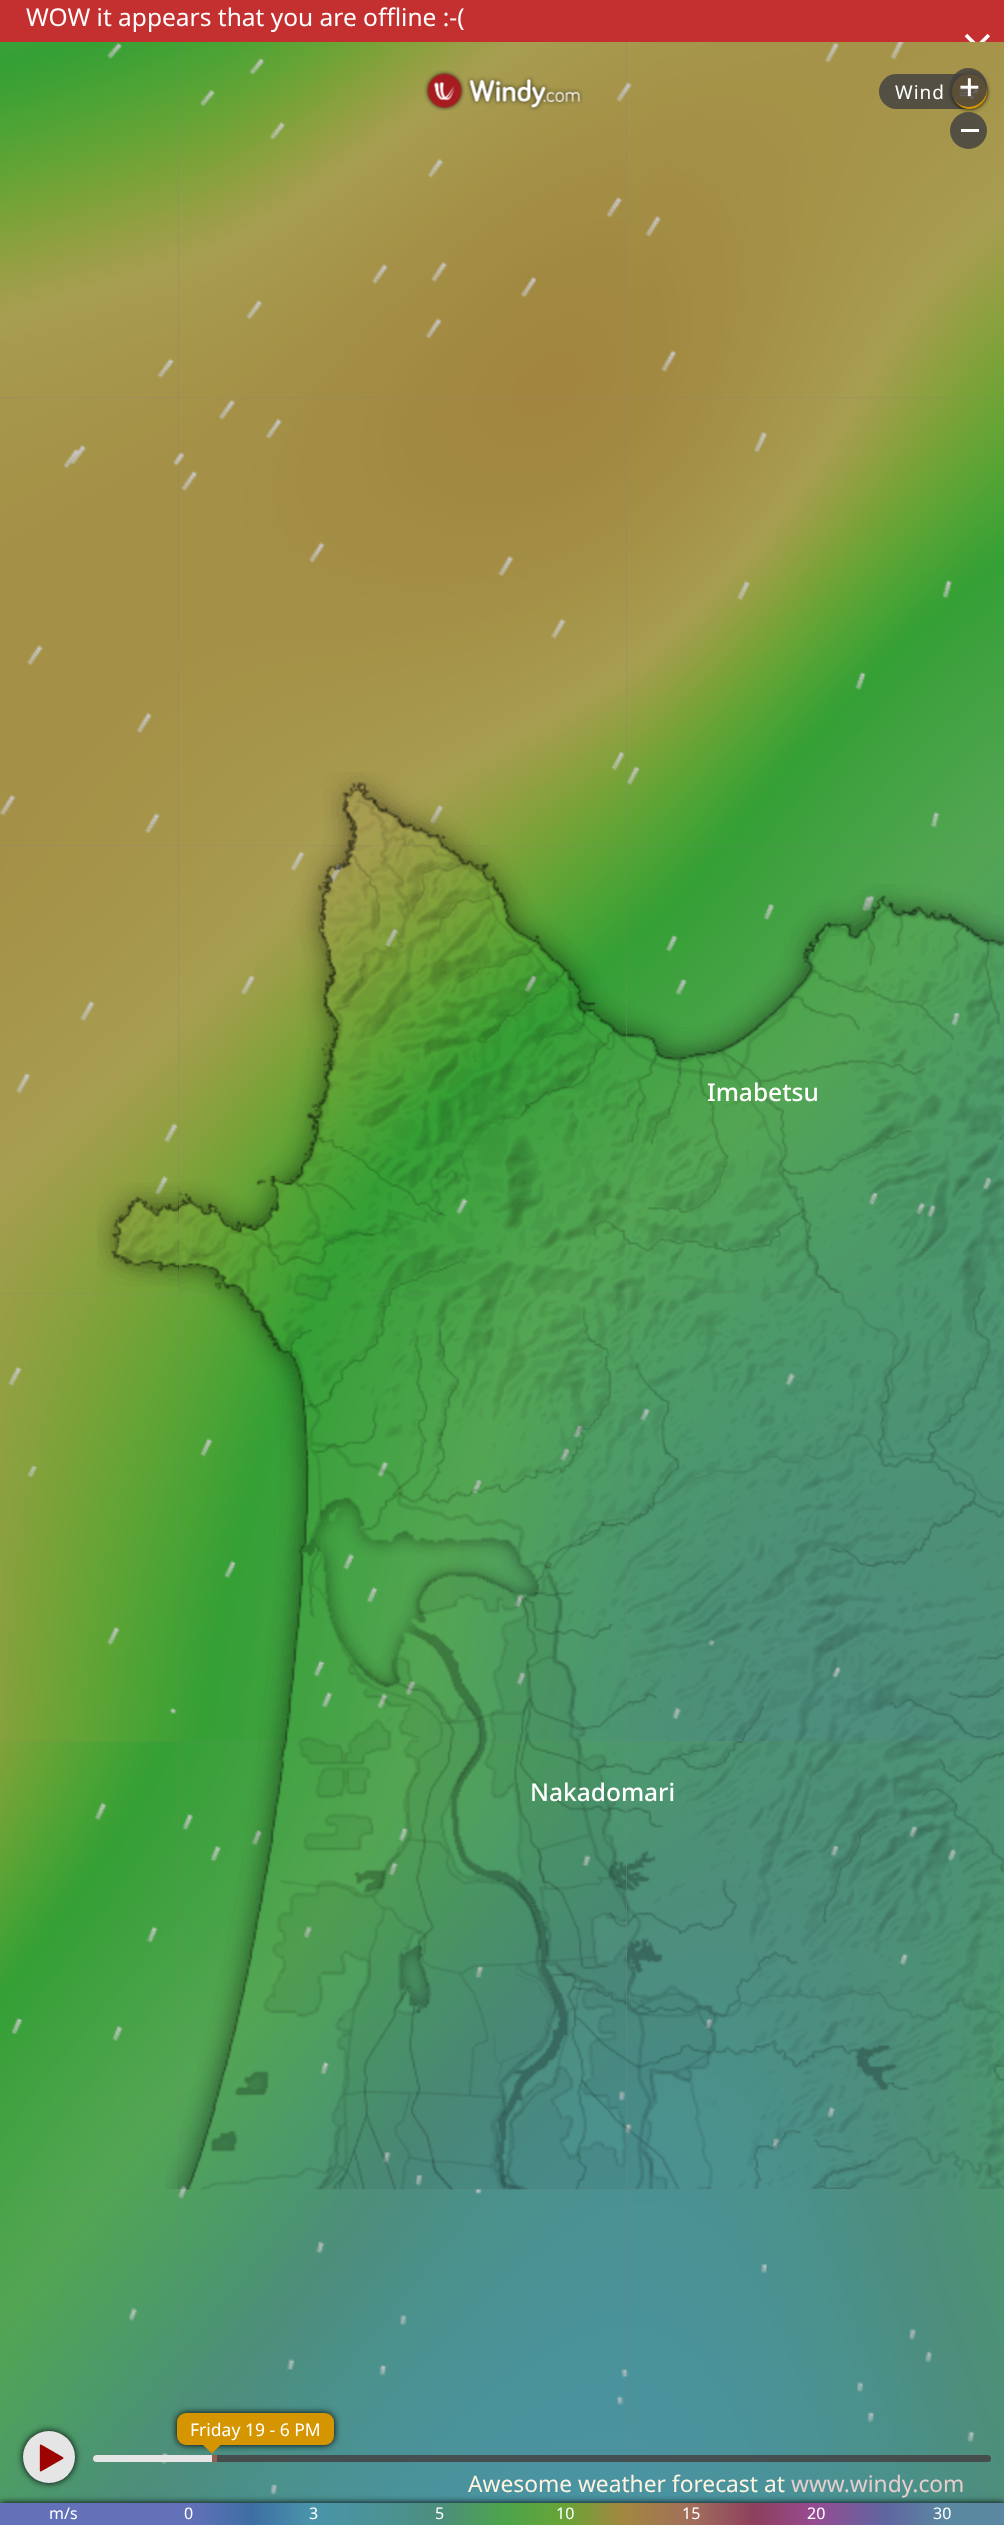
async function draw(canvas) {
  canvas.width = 1004
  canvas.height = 2525
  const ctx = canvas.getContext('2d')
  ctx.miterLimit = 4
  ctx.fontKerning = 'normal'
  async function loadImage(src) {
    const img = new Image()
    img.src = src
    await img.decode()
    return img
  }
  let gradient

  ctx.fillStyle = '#808080'
  ctx.fillRect(0, 0, 1004, 2525)
  ctx.fillStyle = '#c42f2f'
  ctx.fillRect(0, 0, 1004, 42)
  ctx.font = '24.5px Noto Sans'
  ctx.fillStyle = '#fff'
  ctx.fillText('WOW it appears that you are offline :-(', 26, 26)
  ctx.drawImage(await loadImage('image0.png'), 964, 33, 26, 9)
  ctx.drawImage(await loadImage('image12.png'), 178, 845, 449, 449)
  ctx.drawImage(await loadImage('image13.png'), 626, 845, 378, 449)
  ctx.drawImage(await loadImage('image9.png'), 178, 397, 449, 449)
  ctx.drawImage(await loadImage('image8.png'), 0, 397, 179, 448)
  ctx.drawImage(await loadImage('image10.png'), 626, 397, 378, 449)
  ctx.drawImage(await loadImage('image6.png'), 178, 42, 449, 356)
  ctx.drawImage(await loadImage('image5.png'), 0, 42, 179, 355)
  ctx.drawImage(await loadImage('image7.png'), 626, 42, 378, 356)
  ctx.drawImage(await loadImage('image15.png'), 178, 1293, 449, 449)
  ctx.drawImage(await loadImage('image11.png'), 0, 845, 179, 449)
  ctx.drawImage(await loadImage('image16.png'), 626, 1293, 378, 449)
  ctx.drawImage(await loadImage('image18.png'), 178, 1741, 449, 449)
  ctx.drawImage(await loadImage('image14.png'), 0, 1293, 179, 449)
  ctx.drawImage(await loadImage('image17.png'), 0, 1741, 179, 449)
  ctx.drawImage(await loadImage('image19.png'), 626, 1741, 378, 449)
  ctx.drawImage(await loadImage('image21.png'), 178, 2189, 449, 314)
  ctx.drawImage(await loadImage('image20.png'), 0, 2189, 179, 314)
  ctx.drawImage(await loadImage('image22.png'), 626, 2189, 378, 314)
  ctx.drawImage(await loadImage('image23.png'), 0, 42, 993, 2453)
  ctx.drawImage(await loadImage('image1.png'), 424, 70, 41, 41)
  ctx.drawImage(await loadImage('image2.png'), 466, 76, 117, 35)
  ctx.fillStyle = '#444141d6'
  ctx.beginPath()
  ctx.roundRect(879, 74, 108, 35, 17.5)
  ctx.fill()
  ctx.letterSpacing = '1px'
  ctx.font = '19px Noto Sans'
  ctx.fillStyle = '#fff'
  ctx.fillText('Wind', 895, 99)
  ctx.fillStyle = '#000'
  ctx.filter = 'blur(2px)'
  ctx.beginPath()
  ctx.roundRect(952, 74, 35, 35, 17.5)
  ctx.fill()
  ctx.filter = 'none'
  ctx.fillStyle = '#d49500'
  ctx.beginPath()
  ctx.arc(969.5, 91.5, 17.5, 0, 2 * Math.PI)
  ctx.fill()
  ctx.drawImage(await loadImage('image3.png'), 959, 88, 20, 12)
  ctx.fillStyle = '#444141d6'
  ctx.beginPath()
  ctx.roundRect(950, 68, 37, 39, 18.5)
  ctx.fill()
  ctx.drawImage(await loadImage('image4.png'), 960, 78, 19, 19)
  ctx.beginPath()
  ctx.arc(968.5, 130.5, 18.5, 0, 2 * Math.PI)
  ctx.fill()
  ctx.fillStyle = '#fff'
  ctx.fillRect(961, 129, 18, 3)
  ctx.drawImage(await loadImage('image26.png'), 178, 845, 449, 449)
  ctx.drawImage(await loadImage('image24.png'), 323, 772, 157, 74)
  ctx.drawImage(await loadImage('image25.png'), 97, 1183, 82, 104)
  ctx.drawImage(await loadImage('image27.png'), 627, 884, 377, 409)
  ctx.drawImage(await loadImage('image28.png'), 208, 1293, 419, 449)
  ctx.drawImage(await loadImage('image29.png'), 627, 1293, 377, 448)
  ctx.drawImage(await loadImage('image31.png'), 178, 1741, 449, 449)
  ctx.drawImage(await loadImage('image30.png'), 165, 2153, 14, 36)
  ctx.drawImage(await loadImage('image32.png'), 627, 1741, 377, 448)
  ctx.letterSpacing = '0px'
  ctx.font = '500 24.5px Noto Sans'
  ctx.fillText('Imabetsu', 707, 1101)
  ctx.fillText('Nakadomari', 530, 1801)
  ctx.fillStyle = '#000'
  ctx.filter = 'blur(3.5px)'
  ctx.beginPath()
  ctx.roundRect(23, 2431, 52, 52, 26)
  ctx.fill()
  ctx.filter = 'none'
  ctx.fillStyle = '#e5e5e5'
  ctx.beginPath()
  ctx.arc(49, 2457, 26, 0, 2 * Math.PI)
  ctx.fill()
  ctx.drawImage(await loadImage('image33.png'), 39, 2444, 25, 28)
  ctx.fillStyle = '#000'
  ctx.filter = 'blur(3.5px)'
  ctx.beginPath()
  ctx.roundRect(177, 2413, 157, 32, 9)
  ctx.fill()
  ctx.filter = 'none'
  ctx.fillStyle = '#d49500'
  ctx.beginPath()
  ctx.roundRect(177, 2413, 157, 32, 9)
  ctx.fill()
  ctx.font = '17.5px Noto Sans'
  ctx.fillStyle = '#fff'
  ctx.fillText('Friday 19 - 6 PM', 190, 2436)
  ctx.fillStyle = '#d49500'
  ctx.beginPath()
  ctx.moveTo(203, 2445)
  ctx.lineTo(220.5, 2445)
  ctx.lineTo(212, 2453.5)
  ctx.closePath()
  ctx.fill()
  ctx.fillStyle = '#444141d6'
  ctx.beginPath()
  ctx.roundRect(93, 2455, 898, 7, 3.5)
  ctx.fill()
  ctx.fillStyle = '#e5e5e5'
  ctx.beginPath()
  ctx.roundRect(93, 2455, 119, 7, [3.5, 0, 0, 3.5])
  ctx.fill()
  ctx.fillStyle = '#946051'
  ctx.fillRect(212, 2455, 5, 7)
  ctx.fillStyle = '#000'
  ctx.filter = 'blur(3.5px)'
  ctx.beginPath()
  ctx.rect(0, 2503, 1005, 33)
  ctx.fill()
  ctx.filter = 'none'
  ctx.font = '22.75px Noto Sans'
  ctx.fillStyle = '#fff3e1'
  ctx.fillText('Awesome weather forecast at', 468, 2492)
  ctx.fillStyle = '#e6cece'
  ctx.fillText('www.windy.com', 791, 2492)
  gradient = ctx.createLinearGradient(0, 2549, 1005, 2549)
  gradient.addColorStop(0, '#6271b8')
  gradient.addColorStop(0.19, '#6271b8')
  gradient.addColorStop(0.25, '#3d6ea3')
  gradient.addColorStop(0.31, '#4a94aa')
  gradient.addColorStop(0.38, '#4a9294')
  gradient.addColorStop(0.44, '#4d8e7c')
  gradient.addColorStop(0.5, '#4ca44c')
  gradient.addColorStop(0.56, '#67a436')
  gradient.addColorStop(0.62, '#a28740')
  gradient.addColorStop(0.69, '#a26d5c')
  gradient.addColorStop(0.75, '#8d3f5c')
  gradient.addColorStop(0.81, '#974b91')
  gradient.addColorStop(0.88, '#5f64a0')
  gradient.addColorStop(0.94, '#5b88a1')
  gradient.addColorStop(1, '#5b88a1')
  ctx.fillStyle = gradient
  ctx.fillRect(0, 2503, 1004, 22)
  ctx.font = '16px Noto Sans'
  ctx.fillStyle = '#fff'
  ctx.fillText('m/s', 49, 2519)
  ctx.fillText('0', 184, 2519)
  ctx.fillText('3', 309, 2519)
  ctx.fillText('5', 435, 2519)
  ctx.fillText('10', 556, 2519)
  ctx.fillText('15', 682, 2519)
  ctx.fillText('20', 807, 2519)
  ctx.fillText('30', 933, 2519)
}

draw(document.querySelector('canvas'))
